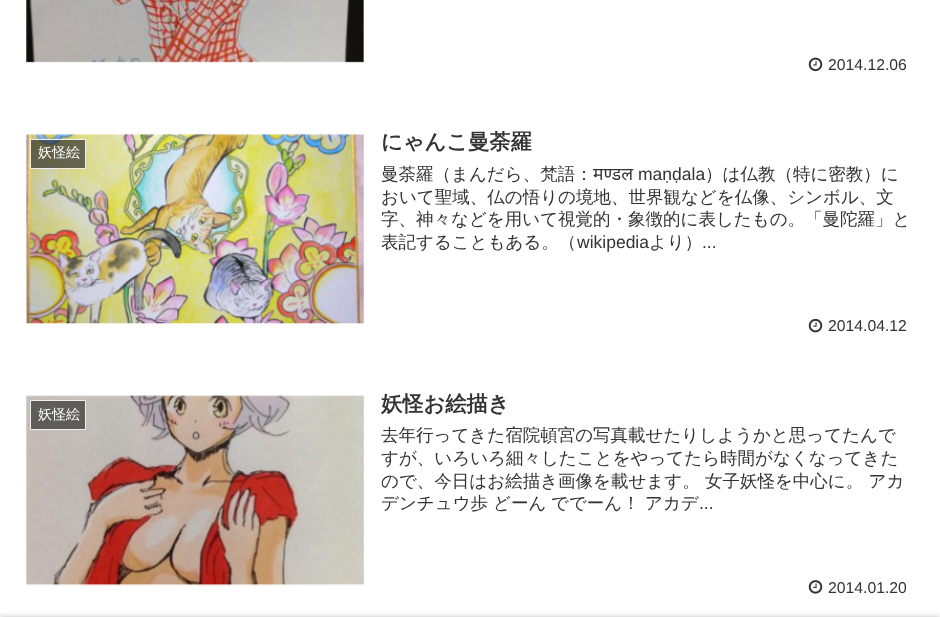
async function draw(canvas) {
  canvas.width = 940
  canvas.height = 617
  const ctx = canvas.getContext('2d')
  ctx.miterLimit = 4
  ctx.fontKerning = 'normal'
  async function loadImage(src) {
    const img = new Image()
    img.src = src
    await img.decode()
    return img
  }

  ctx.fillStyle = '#fff'
  ctx.fillRect(0, 0, 940, 617)
  ctx.drawImage(await loadImage('image0.png'), 26, 0, 338, 63)
  ctx.drawImage(await loadImage('image1.png'), 808, 57, 15, 15)
  ctx.font = '15.75px Liberation Sans'
  ctx.fillStyle = '#333'
  ctx.fillText('2014.12.06', 828, 70)
  ctx.drawImage(await loadImage('image2.png'), 26, 134, 338, 191)
  ctx.fillStyle = '#333333b3'
  ctx.beginPath()
  ctx.rect(30.5, 139.5, 55, 29)
  ctx.fill()
  ctx.strokeStyle = '#eee'
  ctx.stroke()
  ctx.font = '500 14px WenQuanYi Zen Hei'
  ctx.fillStyle = '#fff'
  ctx.fillText('妖怪絵', 38, 157)
  ctx.font = 'bold 21.25px WenQuanYi Zen Hei'
  ctx.fillStyle = '#333'
  ctx.fillText('にゃんこ曼荼羅', 381, 149)
  ctx.font = '500 17.5px WenQuanYi Zen Hei'
  ctx.fillText('曼荼羅（まんだら、梵語：', 381, 180)
  ctx.font = '17.5px Noto Sans'
  ctx.fillText('मण्डल', 593, 180)
  ctx.font = '17.5px Liberation Sans'
  ctx.fillText('maṇḍala', 638, 180)
  ctx.font = '500 17.5px WenQuanYi Zen Hei'
  ctx.fillText('）は仏教（特に密教）に', 705, 180)
  ctx.fillText('おいて聖域、仏の悟りの境地、世界観などを仏像、シンボル、文', 381, 203)
  ctx.fillText('字、神々などを用いて視覚的・象徴的に表したもの。「曼陀羅」と', 381, 225)
  ctx.fillText('表記することもある。（', 381, 248)
  ctx.font = '17.5px Liberation Sans'
  ctx.fillText('wikipedia', 577, 248)
  ctx.font = '500 17.5px WenQuanYi Zen Hei'
  ctx.fillText('より）', 649, 248)
  ctx.font = '17.5px Liberation Sans'
  ctx.fillText('...', 702, 248)
  ctx.drawImage(await loadImage('image3.png'), 808, 318, 15, 15)
  ctx.font = '15.75px Liberation Sans'
  ctx.fillText('2014.04.12', 828, 331)
  ctx.drawImage(await loadImage('image4.png'), 26, 395, 338, 191)
  ctx.fillStyle = '#333333b3'
  ctx.beginPath()
  ctx.rect(30.5, 400.5, 55, 29)
  ctx.fill()
  ctx.stroke()
  ctx.font = '500 14px WenQuanYi Zen Hei'
  ctx.fillStyle = '#fff'
  ctx.fillText('妖怪絵', 38, 419)
  ctx.font = 'bold 21.25px WenQuanYi Zen Hei'
  ctx.fillStyle = '#333'
  ctx.fillText('妖怪お絵描き', 381, 411)
  ctx.font = '500 17.5px WenQuanYi Zen Hei'
  ctx.fillText('去年行ってきた宿院頓宮の写真載せたりしようかと思ってたんで', 381, 441)
  ctx.fillText('すが、いろいろ細々したことをやってたら時間がなくなってきた', 381, 464)
  ctx.fillText('ので、今日はお絵描き画像を載せます。 女子妖怪を中心に。 アカ', 381, 487)
  ctx.fillText('デンチュウ歩', 381, 509)
  ctx.fillText('どーん', 493, 509)
  ctx.fillText('ででーん！ アカデ', 551, 509)
  ctx.font = '17.5px Liberation Sans'
  ctx.fillText('...', 699, 509)
  ctx.drawImage(await loadImage('image5.png'), 808, 580, 15, 14)
  ctx.font = '15.75px Liberation Sans'
  ctx.fillText('2014.01.20', 828, 593)
  ctx.fillStyle = '#a9a9a9'
  ctx.filter = 'blur(3px)'
  ctx.beginPath()
  ctx.rect(0, 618, 940, 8)
  ctx.fill()
  ctx.filter = 'none'
}

draw(document.querySelector('canvas'))
